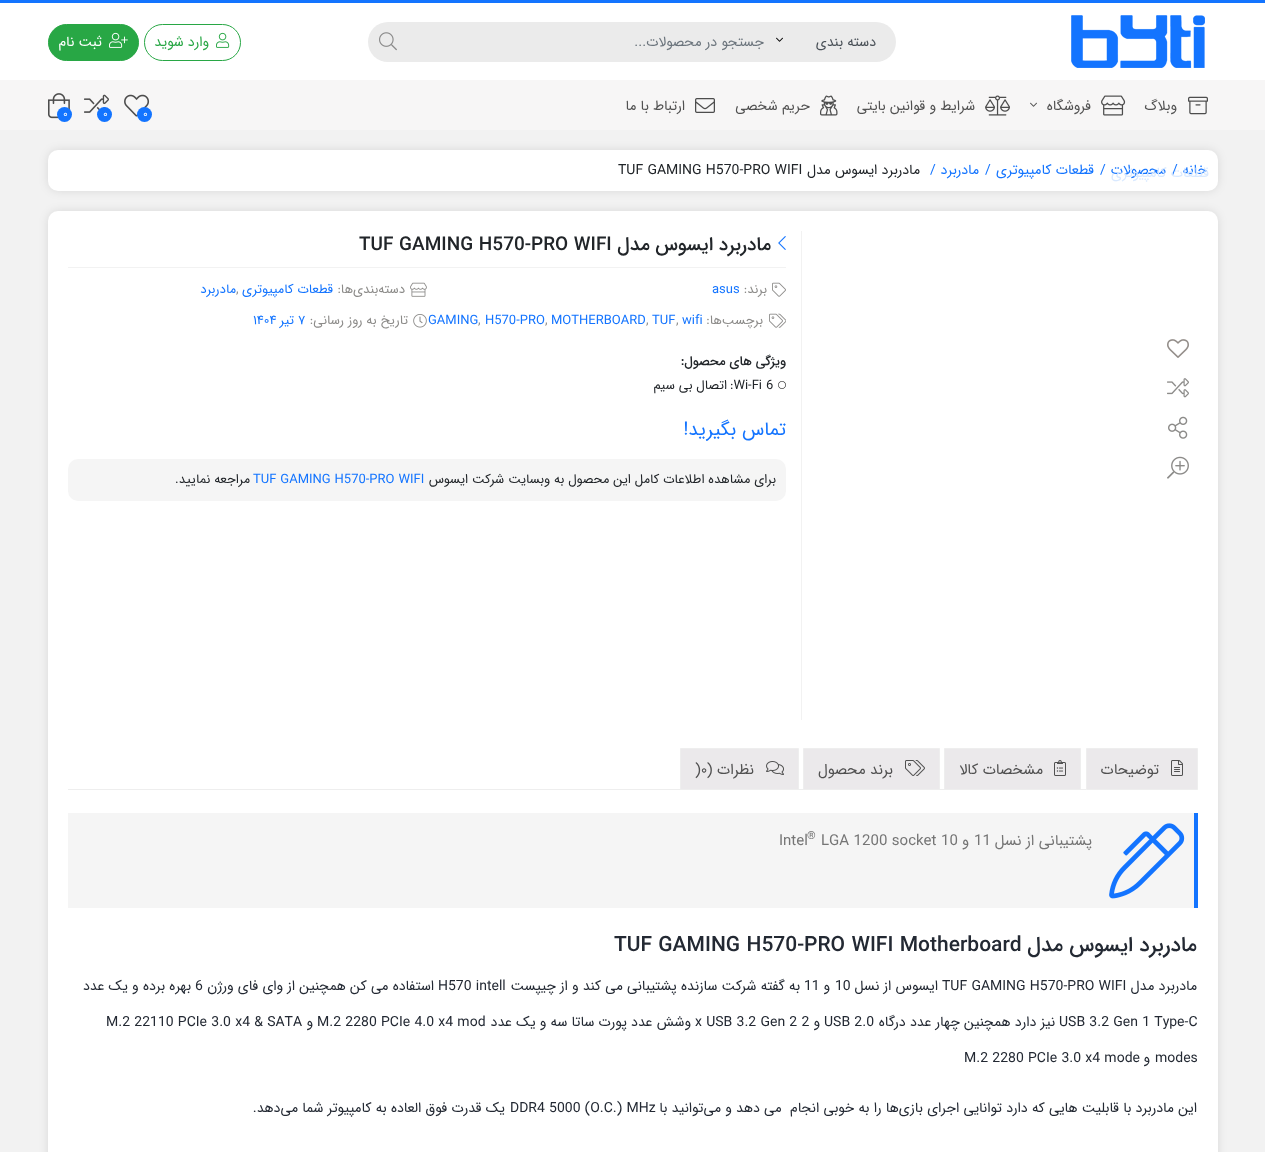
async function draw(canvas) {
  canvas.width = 1265
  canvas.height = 1152
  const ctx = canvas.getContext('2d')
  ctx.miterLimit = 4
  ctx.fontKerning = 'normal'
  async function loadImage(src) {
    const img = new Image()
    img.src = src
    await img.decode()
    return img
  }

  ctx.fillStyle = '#f2f2f2'
  ctx.fillRect(0, 0, 1265, 1152)
  ctx.fillStyle = '#fff'
  ctx.fillRect(0, 3, 1265, 77)
  ctx.fillStyle = '#1374ff'
  ctx.fillRect(0, 0, 1265, 3)
  ctx.drawImage(await loadImage('image0.png'), 1071, 15, 134, 53)
  ctx.fillStyle = '#ebebeb'
  ctx.beginPath()
  ctx.roundRect(776, 22, 120, 40, [0, 20, 20, 0])
  ctx.fill()
  ctx.direction = 'rtl'
  ctx.font = '14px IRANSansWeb'
  ctx.fillStyle = '#495057'
  ctx.fillText('دسته بندی', 876, 46)
  ctx.drawImage(await loadImage('image1.png'), 776, 37, 7, 5)
  ctx.fillStyle = '#ebebeb'
  ctx.fillRect(408, 22, 368, 40)
  ctx.fillStyle = '#6c757d'
  ctx.fillText('جستجو در محصولات...', 764, 46)
  ctx.fillStyle = '#ebebeb'
  ctx.beginPath()
  ctx.roundRect(368, 22, 40, 40, [20, 0, 0, 20])
  ctx.fill()
  ctx.drawImage(await loadImage('image2.png'), 379, 32, 18, 19)
  ctx.beginPath()
  ctx.roundRect(144.5, 24.5, 96, 36, 18)
  ctx.strokeStyle = '#28a745'
  ctx.stroke()
  ctx.drawImage(await loadImage('image3.png'), 216, 32, 14, 16)
  ctx.fillStyle = '#28a745'
  ctx.fillText('وارد شوید', 209, 46)
  ctx.beginPath()
  ctx.roundRect(48.5, 24.5, 90, 36, 18)
  ctx.fill()
  ctx.stroke()
  ctx.drawImage(await loadImage('image4.png'), 109, 32, 19, 16)
  ctx.fillStyle = '#fff'
  ctx.fillText('ثبت نام', 102, 46)
  ctx.fillStyle = '#f7f6f6'
  ctx.fillRect(0, 80, 1265, 50)
  ctx.drawImage(await loadImage('image5.png'), 1101, 95, 25, 21)
  ctx.fillStyle = '#515151'
  ctx.fillText('فروشگاه', 1091, 110)
  ctx.drawImage(await loadImage('image6.png'), 1030, 102, 7, 5)
  ctx.fillStyle = '#0000001a'
  ctx.filter = 'blur(5px)'
  ctx.beginPath()
  ctx.roundRect(48, 150, 1170, 41, 10)
  ctx.fill()
  ctx.filter = 'none'
  ctx.fillStyle = '#fff'
  ctx.beginPath()
  ctx.roundRect(48, 150, 1170, 41, 10)
  ctx.fill()
  ctx.fillStyle = '#1374ff'
  ctx.fillText('خانه', 1207, 174)
  ctx.direction = 'ltr'
  ctx.fillText('/', 1172, 174)
  ctx.direction = 'rtl'
  ctx.fillText('محصولات', 1166, 174)
  ctx.fillStyle = '#d9e9ff'
  ctx.fillText('قطعات کامپیوتری', 1209, 177)
  ctx.drawImage(await loadImage('image7.png'), 1188, 96, 20, 19)
  ctx.fillStyle = '#515151'
  ctx.fillText('وبلاگ', 1177, 110)
  ctx.drawImage(await loadImage('image8.png'), 985, 95, 25, 21)
  ctx.fillText('شرایط و قوانین بایتی', 975, 110)
  ctx.drawImage(await loadImage('image9.png'), 820, 95, 18, 21)
  ctx.fillText('حریم شخصی', 810, 110)
  ctx.drawImage(await loadImage('image10.png'), 695, 98, 20, 15)
  ctx.fillText('ارتباط با ما', 685, 110)
  ctx.drawImage(await loadImage('image11.png'), 124, 94, 26, 23)
  ctx.fillStyle = '#1374ff'
  ctx.beginPath()
  ctx.arc(144.5, 114.5, 7.5, 0, 2 * Math.PI)
  ctx.fill()
  ctx.direction = 'ltr'
  ctx.font = '11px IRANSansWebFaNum'
  ctx.fillStyle = '#fff'
  ctx.fillText('0', 143, 117)
  ctx.drawImage(await loadImage('image12.png'), 84, 94, 25, 19)
  ctx.fillStyle = '#1374ff'
  ctx.beginPath()
  ctx.arc(104.5, 114.5, 7.5, 0, 2 * Math.PI)
  ctx.fill()
  ctx.fillStyle = '#fff'
  ctx.fillText('0', 103, 117)
  ctx.drawImage(await loadImage('image13.png'), 48, 93, 22, 26)
  ctx.fillStyle = '#1374ff'
  ctx.beginPath()
  ctx.arc(64.5, 114.5, 7.5, 0, 2 * Math.PI)
  ctx.fill()
  ctx.fillStyle = '#fff'
  ctx.fillText('0', 63, 117)
  ctx.font = '14px IRANSansWeb'
  ctx.fillStyle = '#1374ff'
  ctx.fillText('/', 1100, 174)
  ctx.direction = 'rtl'
  ctx.fillText('قطعات کامپیوتری', 1094, 174)
  ctx.direction = 'ltr'
  ctx.fillText('/', 985, 174)
  ctx.direction = 'rtl'
  ctx.fillText('مادربرد', 979, 174)
  ctx.direction = 'ltr'
  ctx.fillText('/', 930, 174)
  ctx.direction = 'rtl'
  ctx.fillStyle = '#212529'
  ctx.fillText('مادربرد ایسوس مدل', 920, 174)
  ctx.direction = 'ltr'
  ctx.fillText('TUF GAMING H570-PRO WIFI', 618, 174)
  ctx.fillStyle = '#0000001a'
  ctx.filter = 'blur(5px)'
  ctx.beginPath()
  ctx.roundRect(48, 211, 1170, 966, 10)
  ctx.fill()
  ctx.filter = 'none'
  ctx.fillStyle = '#fff'
  ctx.beginPath()
  ctx.roundRect(48, 211, 1170, 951, 10)
  ctx.fill()
  ctx.drawImage(await loadImage('image14.png'), 1167, 339, 22, 19)
  ctx.drawImage(await loadImage('image15.png'), 1167, 378, 22, 20)
  ctx.drawImage(await loadImage('image16.png'), 1168, 416, 20, 23)
  ctx.drawImage(await loadImage('image17.png'), 1167, 456, 22, 23)
  ctx.fillStyle = '#f2f2f2'
  ctx.fillRect(801, 231, 1, 489)
  ctx.fillRect(68, 267, 718, 1)
  ctx.drawImage(await loadImage('image18.png'), 778, 236, 8, 14)
  ctx.direction = 'rtl'
  ctx.font = '500 19px IRANSansWeb'
  ctx.fillStyle = '#212529'
  ctx.fillText('مادربرد ایسوس مدل', 771, 250)
  ctx.direction = 'ltr'
  ctx.fillText('TUF GAMING H570-PRO WIFI', 359, 250)
  ctx.drawImage(await loadImage('image19.png'), 772, 282, 14, 15)
  ctx.direction = 'rtl'
  ctx.font = '13px IRANSansWeb'
  ctx.fillStyle = '#8c8b89'
  ctx.fillText('برند:', 767, 293)
  ctx.direction = 'ltr'
  ctx.fillStyle = '#1374ff'
  ctx.fillText('asus', 712, 293)
  ctx.drawImage(await loadImage('image20.png'), 410, 282, 17, 15)
  ctx.direction = 'rtl'
  ctx.fillStyle = '#8c8b89'
  ctx.fillText('دسته‌بندی‌ها:', 405, 293)
  ctx.fillStyle = '#1374ff'
  ctx.fillText('قطعات کامپیوتری', 333, 293)
  ctx.direction = 'ltr'
  ctx.fillStyle = '#8c8b89'
  ctx.fillText(',', 236, 293)
  ctx.direction = 'rtl'
  ctx.fillStyle = '#1374ff'
  ctx.fillText('مادربرد', 236, 293)
  ctx.drawImage(await loadImage('image21.png'), 769, 313, 17, 15)
  ctx.fillStyle = '#8c8b89'
  ctx.fillText('برچسب‌ها:', 763, 324)
  ctx.direction = 'ltr'
  ctx.fillStyle = '#1374ff'
  ctx.fillText('wifi', 682, 324)
  ctx.fillStyle = '#8c8b89'
  ctx.fillText(',', 676, 324)
  ctx.fillStyle = '#1374ff'
  ctx.fillText('TUF', 652, 324)
  ctx.fillStyle = '#8c8b89'
  ctx.fillText(',', 646, 324)
  ctx.fillStyle = '#1374ff'
  ctx.fillText('MOTHERBOARD', 551, 324)
  ctx.fillStyle = '#8c8b89'
  ctx.fillText(',', 545, 324)
  ctx.fillStyle = '#1374ff'
  ctx.fillText('H570-PRO', 485, 324)
  ctx.fillStyle = '#8c8b89'
  ctx.fillText(',', 478, 324)
  ctx.fillStyle = '#1374ff'
  ctx.fillText('GAMING', 428, 324)
  ctx.drawImage(await loadImage('image22.png'), 413, 314, 14, 14)
  ctx.direction = 'rtl'
  ctx.fillStyle = '#8c8b89'
  ctx.fillText('تاریخ به روز رسانی:', 408, 324)
  ctx.direction = 'ltr'
  ctx.font = '13px IRANSansWebFaNum'
  ctx.fillStyle = '#1374ff'
  ctx.fillText('7', 298, 324)
  ctx.direction = 'rtl'
  ctx.fillText('تیر', 294, 324)
  ctx.direction = 'ltr'
  ctx.fillText('1404', 253, 324)
  ctx.direction = 'rtl'
  ctx.font = '500 13px IRANSansWeb'
  ctx.fillStyle = '#212529'
  ctx.fillText('ویژگی های محصول:', 786, 365)
  ctx.drawImage(await loadImage('image23.png'), 778, 381, 8, 8)
  ctx.direction = 'ltr'
  ctx.font = '13px IRANSansWeb'
  ctx.fillText(':Wi-Fi 6', 730, 389)
  ctx.direction = 'rtl'
  ctx.fillText('اتصال بی سیم', 727, 389)
  ctx.font = '19px IRANSansWebFaNum'
  ctx.fillStyle = '#1374ff'
  ctx.fillText('تماس بگیرید!', 786, 435)
  ctx.fillStyle = '#f5f5f5'
  ctx.beginPath()
  ctx.roundRect(68, 459, 718, 42, 10)
  ctx.fill()
  ctx.font = '13px IRANSansWeb'
  ctx.fillStyle = '#212529'
  ctx.fillText('برای مشاهده اطلاعات کامل این محصول به وبسایت شرکت ایسوس', 776, 483)
  ctx.direction = 'ltr'
  ctx.fillStyle = '#1374ff'
  ctx.fillText('TUF GAMING H570-PRO WIFI', 253, 483)
  ctx.direction = 'rtl'
  ctx.fillStyle = '#212529'
  ctx.fillText('مراجعه نمایید.', 250, 483)
  ctx.fillStyle = '#ebe9eb'
  ctx.beginPath()
  ctx.rect(1086.5, 748.5, 111, 41)
  ctx.fill()
  ctx.strokeStyle = '#eee'
  ctx.stroke()
  ctx.drawImage(await loadImage('image24.png'), 1171, 760, 12, 16)
  ctx.font = '15px IRANSansWebFaNum'
  ctx.fillStyle = '#515151'
  ctx.fillText('توضیحات', 1159, 774)
  ctx.fillStyle = '#ebe9eb'
  ctx.beginPath()
  ctx.rect(944.5, 748.5, 136, 41)
  ctx.fill()
  ctx.stroke()
  ctx.drawImage(await loadImage('image25.png'), 1054, 760, 12, 16)
  ctx.fillStyle = '#515151'
  ctx.fillText('مشخصات کالا', 1043, 774)
  ctx.fillStyle = '#ebe9eb'
  ctx.beginPath()
  ctx.rect(803.5, 748.5, 136, 41)
  ctx.fill()
  ctx.stroke()
  ctx.drawImage(await loadImage('image26.png'), 905, 760, 20, 16)
  ctx.fillStyle = '#515151'
  ctx.fillText('برند محصول', 893, 774)
  ctx.fillStyle = '#ebe9eb'
  ctx.beginPath()
  ctx.rect(680.5, 748.5, 118, 41)
  ctx.fill()
  ctx.stroke()
  ctx.drawImage(await loadImage('image27.png'), 766, 761, 18, 14)
  ctx.fillStyle = '#515151'
  ctx.fillText('نظرات (', 754, 774)
  ctx.direction = 'ltr'
  ctx.fillText(')0', 695, 774)
  ctx.fillStyle = '#eee'
  ctx.fillRect(68, 789, 1018, 1)
  ctx.fillStyle = '#f5f5f5'
  ctx.fillRect(68, 813, 1126, 95)
  ctx.fillStyle = '#1374ff'
  ctx.fillRect(1194, 813, 4, 95)
  ctx.drawImage(await loadImage('image28.png'), 1109, 823, 76, 76)
  ctx.direction = 'rtl'
  ctx.font = '15px IRANSansWeb'
  ctx.fillStyle = '#757575'
  ctx.fillText('پشتیبانی از نسل', 1092, 845)
  ctx.direction = 'ltr'
  ctx.fillText('11', 974, 845)
  ctx.direction = 'rtl'
  ctx.fillText('و', 969, 845)
  ctx.direction = 'ltr'
  ctx.fillText('10', 941, 845)
  ctx.fillText('LGA 1200 socket', 821, 845)
  ctx.font = '11px IRANSansWeb'
  ctx.fillText('®', 807, 839)
  ctx.font = '15px IRANSansWeb'
  ctx.fillText('Intel', 779, 845)
  ctx.direction = 'rtl'
  ctx.font = '500 21px IRANSansWeb'
  ctx.fillStyle = '#232933'
  ctx.fillText('مادربرد ایسوس مدل', 1197, 951)
  ctx.direction = 'ltr'
  ctx.fillText('TUF GAMING H570-PRO WIFI Motherboard', 614, 951)
  ctx.direction = 'rtl'
  ctx.font = '14px IRANSansWeb'
  ctx.fillText('مادربرد مدل', 1197, 990)
  ctx.direction = 'ltr'
  ctx.fillText('TUF GAMING H570-PRO WIFI', 942, 990)
  ctx.direction = 'rtl'
  ctx.fillText('ایسوس از نسل', 938, 990)
  ctx.direction = 'ltr'
  ctx.fillText('10', 835, 990)
  ctx.direction = 'rtl'
  ctx.fillText('و', 830, 990)
  ctx.direction = 'ltr'
  ctx.fillText('11', 804, 990)
  ctx.direction = 'rtl'
  ctx.fillText('به گفته شرکت سازنده پشتیبانی می کند و از چیپست', 800, 990)
  ctx.direction = 'ltr'
  ctx.fillText('H570 intell', 438, 990)
  ctx.direction = 'rtl'
  ctx.fillText('استفاده می کن همچنین از وای فای ورژن', 434, 990)
  ctx.direction = 'ltr'
  ctx.fillText('6', 195, 990)
  ctx.direction = 'rtl'
  ctx.fillText('بهره برده و یک عدد', 191, 990)
  ctx.direction = 'ltr'
  ctx.fillText('USB 3.2 Gen 1 Type-C', 1059, 1026)
  ctx.direction = 'rtl'
  ctx.fillText('نیز دارد همچنین چهار عدد درگاه', 1055, 1026)
  ctx.direction = 'ltr'
  ctx.fillText('USB 2.0', 824, 1026)
  ctx.direction = 'rtl'
  ctx.fillText('و', 820, 1026)
  ctx.direction = 'ltr'
  ctx.fillText('x USB 3.2 Gen 2 2', 695, 1026)
  ctx.direction = 'rtl'
  ctx.fillText('وشش عدد پورت ساتا سه و یک عدد', 691, 1026)
  ctx.direction = 'ltr'
  ctx.fillText('M.2 2280 PCIe 4.0 x4 mod', 317, 1026)
  ctx.direction = 'rtl'
  ctx.fillText('و', 313, 1026)
  ctx.direction = 'ltr'
  ctx.fillText('M.2 22110 PCIe 3.0 x4 & SATA', 106, 1026)
  ctx.fillText('modes', 1155, 1062)
  ctx.direction = 'rtl'
  ctx.fillText('و', 1150, 1062)
  ctx.direction = 'ltr'
  ctx.fillText('M.2 2280 PCIe 3.0 x4 mode', 964, 1062)
  ctx.direction = 'rtl'
  ctx.fillText('این مادربرد با قابلیت هایی که دارد توانایی اجرای بازی‌ها را به خوبی انجام  می دهد و می‌توانید با', 1197, 1112)
  ctx.direction = 'ltr'
  ctx.fillText('DDR4 5000 (O.C.) MHz', 510, 1112)
  ctx.direction = 'rtl'
  ctx.fillText('یک قدرت فوق العاده به کامپیوتر شما می‌دهد.', 505, 1112)
}

draw(document.querySelector('canvas'))
